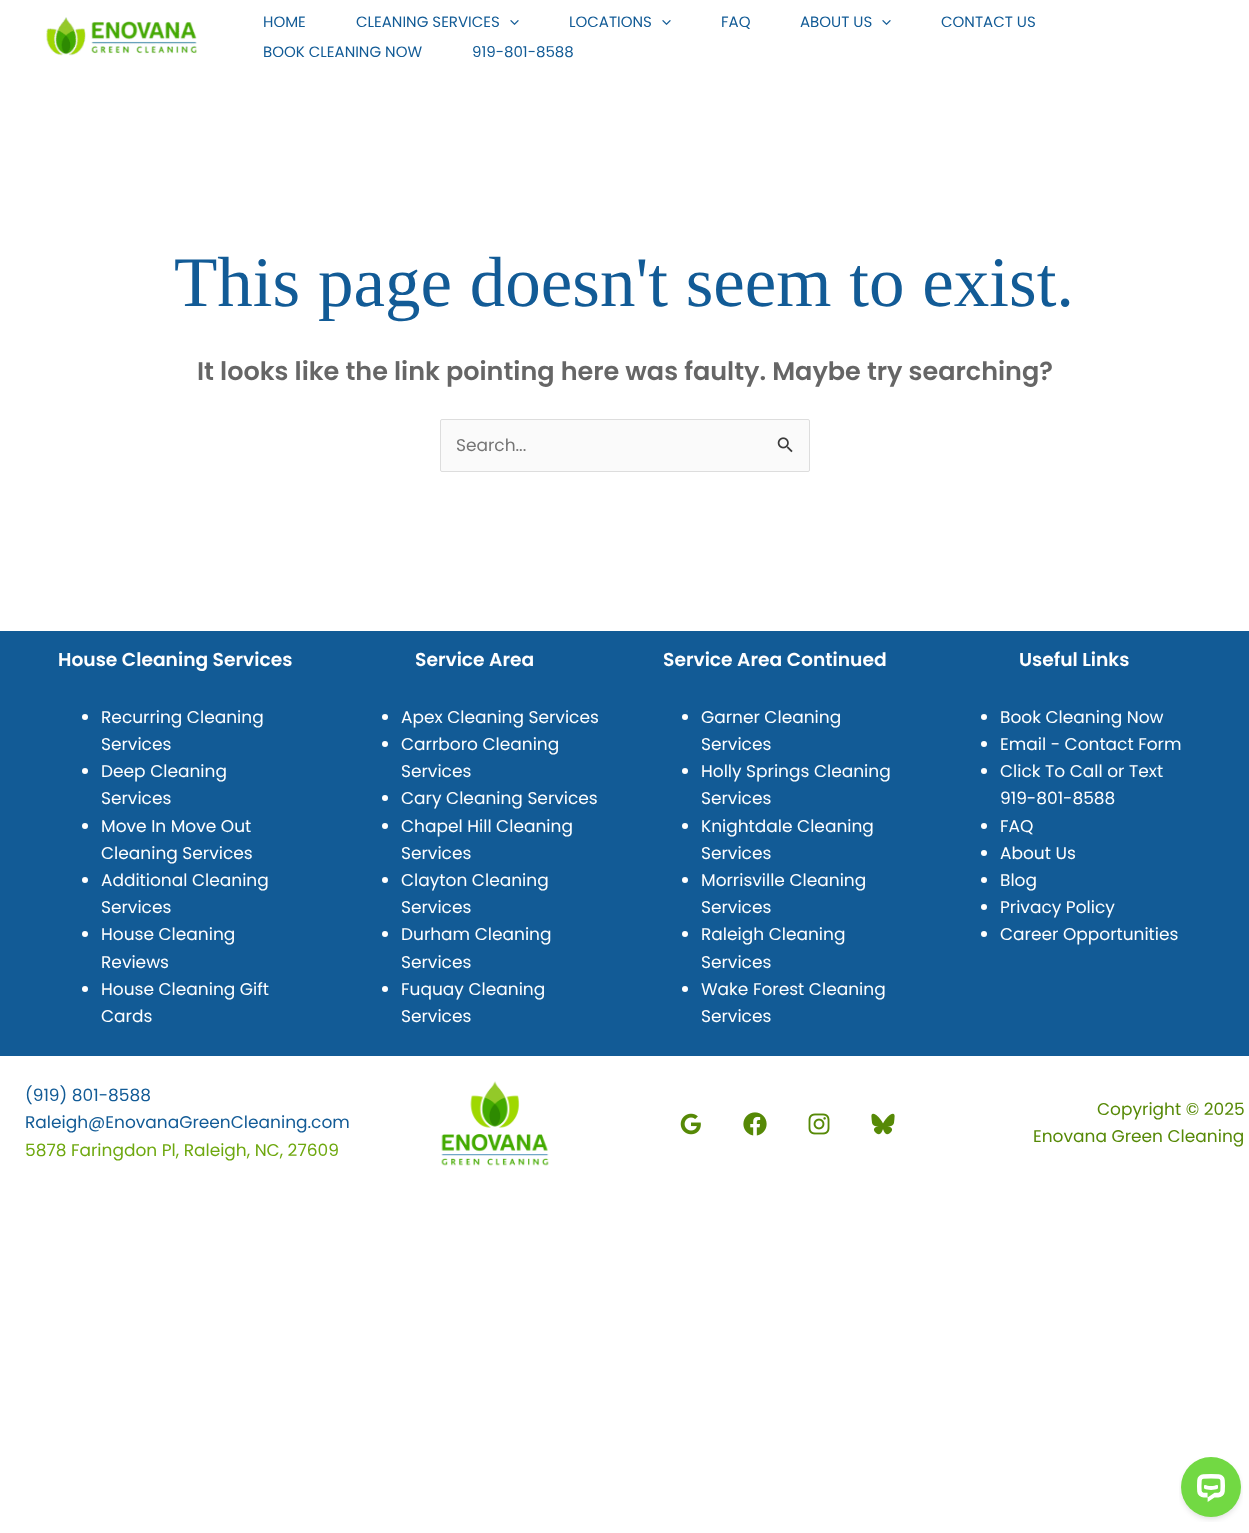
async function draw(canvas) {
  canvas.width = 1249
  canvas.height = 1533
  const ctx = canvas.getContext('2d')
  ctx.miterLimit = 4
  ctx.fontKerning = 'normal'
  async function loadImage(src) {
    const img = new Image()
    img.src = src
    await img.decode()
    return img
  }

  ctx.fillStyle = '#fff'
  ctx.fillRect(0, 0, 1249, 1533)
  ctx.drawImage(await loadImage('image0.png'), 46, 17, 151, 39)
  ctx.font = '15px Poppins'
  ctx.fillStyle = '#125b96'
  ctx.fillText('HOME', 263, 27)
  ctx.fillText('CLEANING SERVICES', 356, 27)
  ctx.drawImage(await loadImage('image1.png'), 510, 20, 9, 5)
  ctx.fillText('LOCATIONS', 569, 27)
  ctx.drawImage(await loadImage('image1.png'), 662, 20, 9, 5)
  ctx.fillText('FAQ', 721, 27)
  ctx.fillText('ABOUT US', 800, 27)
  ctx.drawImage(await loadImage('image1.png'), 882, 20, 9, 5)
  ctx.fillText('CONTACT US', 941, 27)
  ctx.fillText('BOOK CLEANING NOW', 263, 57)
  ctx.fillText('919-801-8588', 472, 57)
  ctx.font = '71px Liberation Serif'
  ctx.fillText('This page doesn\'t seem to exist.', 174, 306)
  ctx.font = '600 25.5px Poppins'
  ctx.fillStyle = '#666'
  ctx.fillText('It looks like the link pointing here was faulty. Maybe try searching?', 197, 380)
  ctx.fillStyle = '#fafafa'
  ctx.beginPath()
  ctx.roundRect(440.5, 419.5, 369, 52, 1.5)
  ctx.fill()
  ctx.strokeStyle = '#ddd'
  ctx.stroke()
  ctx.font = '17px Poppins'
  ctx.fillStyle = '#757575'
  ctx.fillText('Search...', 456, 451)
  ctx.drawImage(await loadImage('image2.png'), 777, 437, 16, 16)
  ctx.fillStyle = '#125b96'
  ctx.fillRect(0, 631, 1249, 425)
  ctx.font = '600 18.7px Poppins'
  ctx.fillStyle = '#fff'
  ctx.fillText('House Cleaning Services', 58, 666)
  ctx.beginPath()
  ctx.arc(85, 717, 3, 0, 2 * Math.PI)
  ctx.fill()
  ctx.font = '17px Poppins'
  ctx.fillText('Recurring Cleaning', 101, 723)
  ctx.fillText('Services', 101, 750)
  ctx.beginPath()
  ctx.arc(85, 771, 3, 0, 2 * Math.PI)
  ctx.fill()
  ctx.fillText('Deep Cleaning', 101, 777)
  ctx.fillText('Services', 101, 804)
  ctx.beginPath()
  ctx.arc(85, 826, 3, 0, 2 * Math.PI)
  ctx.fill()
  ctx.fillText('Move In Move Out', 101, 832)
  ctx.fillText('Cleaning Services', 101, 859)
  ctx.beginPath()
  ctx.arc(85, 880, 3, 0, 2 * Math.PI)
  ctx.fill()
  ctx.fillText('Additional Cleaning', 101, 886)
  ctx.fillText('Services', 101, 913)
  ctx.beginPath()
  ctx.arc(85, 934, 3, 0, 2 * Math.PI)
  ctx.fill()
  ctx.fillText('House Cleaning', 101, 940)
  ctx.fillText('Reviews', 101, 968)
  ctx.beginPath()
  ctx.arc(85, 989, 3, 0, 2 * Math.PI)
  ctx.fill()
  ctx.fillText('House Cleaning Gift', 101, 995)
  ctx.fillText('Cards', 101, 1022)
  ctx.font = '600 18.7px Poppins'
  ctx.fillText('Service Area', 415, 666)
  ctx.beginPath()
  ctx.arc(385, 717, 3, 0, 2 * Math.PI)
  ctx.fill()
  ctx.font = '17px Poppins'
  ctx.fillText('Apex Cleaning Services', 401, 723)
  ctx.beginPath()
  ctx.arc(385, 744, 3, 0, 2 * Math.PI)
  ctx.fill()
  ctx.fillText('Carrboro Cleaning', 401, 750)
  ctx.fillText('Services', 401, 777)
  ctx.beginPath()
  ctx.arc(385, 798, 3, 0, 2 * Math.PI)
  ctx.fill()
  ctx.fillText('Cary Cleaning Services', 401, 804)
  ctx.beginPath()
  ctx.arc(385, 826, 3, 0, 2 * Math.PI)
  ctx.fill()
  ctx.fillText('Chapel Hill Cleaning', 401, 832)
  ctx.fillText('Services', 401, 859)
  ctx.beginPath()
  ctx.arc(385, 880, 3, 0, 2 * Math.PI)
  ctx.fill()
  ctx.fillText('Clayton Cleaning', 401, 886)
  ctx.fillText('Services', 401, 913)
  ctx.beginPath()
  ctx.arc(385, 934, 3, 0, 2 * Math.PI)
  ctx.fill()
  ctx.fillText('Durham Cleaning', 401, 940)
  ctx.fillText('Services', 401, 968)
  ctx.beginPath()
  ctx.arc(385, 989, 3, 0, 2 * Math.PI)
  ctx.fill()
  ctx.fillText('Fuquay Cleaning', 401, 995)
  ctx.fillText('Services', 401, 1022)
  ctx.font = '600 18.7px Poppins'
  ctx.fillText('Service Area Continued', 663, 666)
  ctx.beginPath()
  ctx.arc(685, 717, 3, 0, 2 * Math.PI)
  ctx.fill()
  ctx.font = '17px Poppins'
  ctx.fillText('Garner Cleaning', 701, 723)
  ctx.fillText('Services', 701, 750)
  ctx.beginPath()
  ctx.arc(685, 771, 3, 0, 2 * Math.PI)
  ctx.fill()
  ctx.fillText('Holly Springs Cleaning', 701, 777)
  ctx.fillText('Services', 701, 804)
  ctx.beginPath()
  ctx.arc(685, 826, 3, 0, 2 * Math.PI)
  ctx.fill()
  ctx.fillText('Knightdale Cleaning', 701, 832)
  ctx.fillText('Services', 701, 859)
  ctx.beginPath()
  ctx.arc(685, 880, 3, 0, 2 * Math.PI)
  ctx.fill()
  ctx.fillText('Morrisville Cleaning', 701, 886)
  ctx.fillText('Services', 701, 913)
  ctx.beginPath()
  ctx.arc(685, 934, 3, 0, 2 * Math.PI)
  ctx.fill()
  ctx.fillText('Raleigh Cleaning', 701, 940)
  ctx.fillText('Services', 701, 968)
  ctx.beginPath()
  ctx.arc(685, 989, 3, 0, 2 * Math.PI)
  ctx.fill()
  ctx.fillText('Wake Forest Cleaning', 701, 995)
  ctx.fillText('Services', 701, 1022)
  ctx.font = '600 18.7px Poppins'
  ctx.fillText('Useful Links', 1019, 666)
  ctx.beginPath()
  ctx.arc(984, 717, 3, 0, 2 * Math.PI)
  ctx.fill()
  ctx.font = '17px Poppins'
  ctx.fillText('Book Cleaning Now', 1000, 723)
  ctx.beginPath()
  ctx.arc(984, 744, 3, 0, 2 * Math.PI)
  ctx.fill()
  ctx.fillText('Email - Contact Form', 1000, 750)
  ctx.beginPath()
  ctx.arc(984, 771, 3, 0, 2 * Math.PI)
  ctx.fill()
  ctx.fillText('Click To Call or Text', 1000, 777)
  ctx.fillText('919-801-8588', 1000, 804)
  ctx.beginPath()
  ctx.arc(984, 826, 3, 0, 2 * Math.PI)
  ctx.fill()
  ctx.fillText('FAQ', 1000, 832)
  ctx.beginPath()
  ctx.arc(984, 853, 3, 0, 2 * Math.PI)
  ctx.fill()
  ctx.fillText('About Us', 1000, 859)
  ctx.beginPath()
  ctx.arc(984, 880, 3, 0, 2 * Math.PI)
  ctx.fill()
  ctx.fillText('Blog', 1000, 886)
  ctx.beginPath()
  ctx.arc(984, 907, 3, 0, 2 * Math.PI)
  ctx.fill()
  ctx.fillText('Privacy Policy', 1000, 913)
  ctx.beginPath()
  ctx.arc(984, 934, 3, 0, 2 * Math.PI)
  ctx.fill()
  ctx.fillText('Career Opportunities', 1000, 940)
  ctx.fillStyle = '#125b96'
  ctx.fillText('(919) 801-8588', 25, 1101)
  ctx.fillText('Raleigh@EnovanaGreenCleaning.com', 25, 1128)
  ctx.fillStyle = '#6ea80f'
  ctx.fillText('5878 Faringdon Pl, Raleigh, NC, 27609', 25, 1156)
  ctx.drawImage(await loadImage('image3.png'), 441, 1081, 108, 85)
  ctx.drawImage(await loadImage('image4.png'), 680, 1113, 21, 22)
  ctx.drawImage(await loadImage('image5.png'), 743, 1112, 24, 24)
  ctx.drawImage(await loadImage('image6.png'), 808, 1113, 22, 22)
  ctx.drawImage(await loadImage('image7.png'), 871, 1113, 24, 22)
  ctx.fillStyle = '#568906'
  ctx.fillText('Copyright © 2025', 1097, 1115)
  ctx.fillText('Enovana Green Cleaning', 1033, 1142)
  ctx.drawImage(await loadImage('image8.png'), 1179, 1457, 64, 65)
}

draw(document.querySelector('canvas'))
